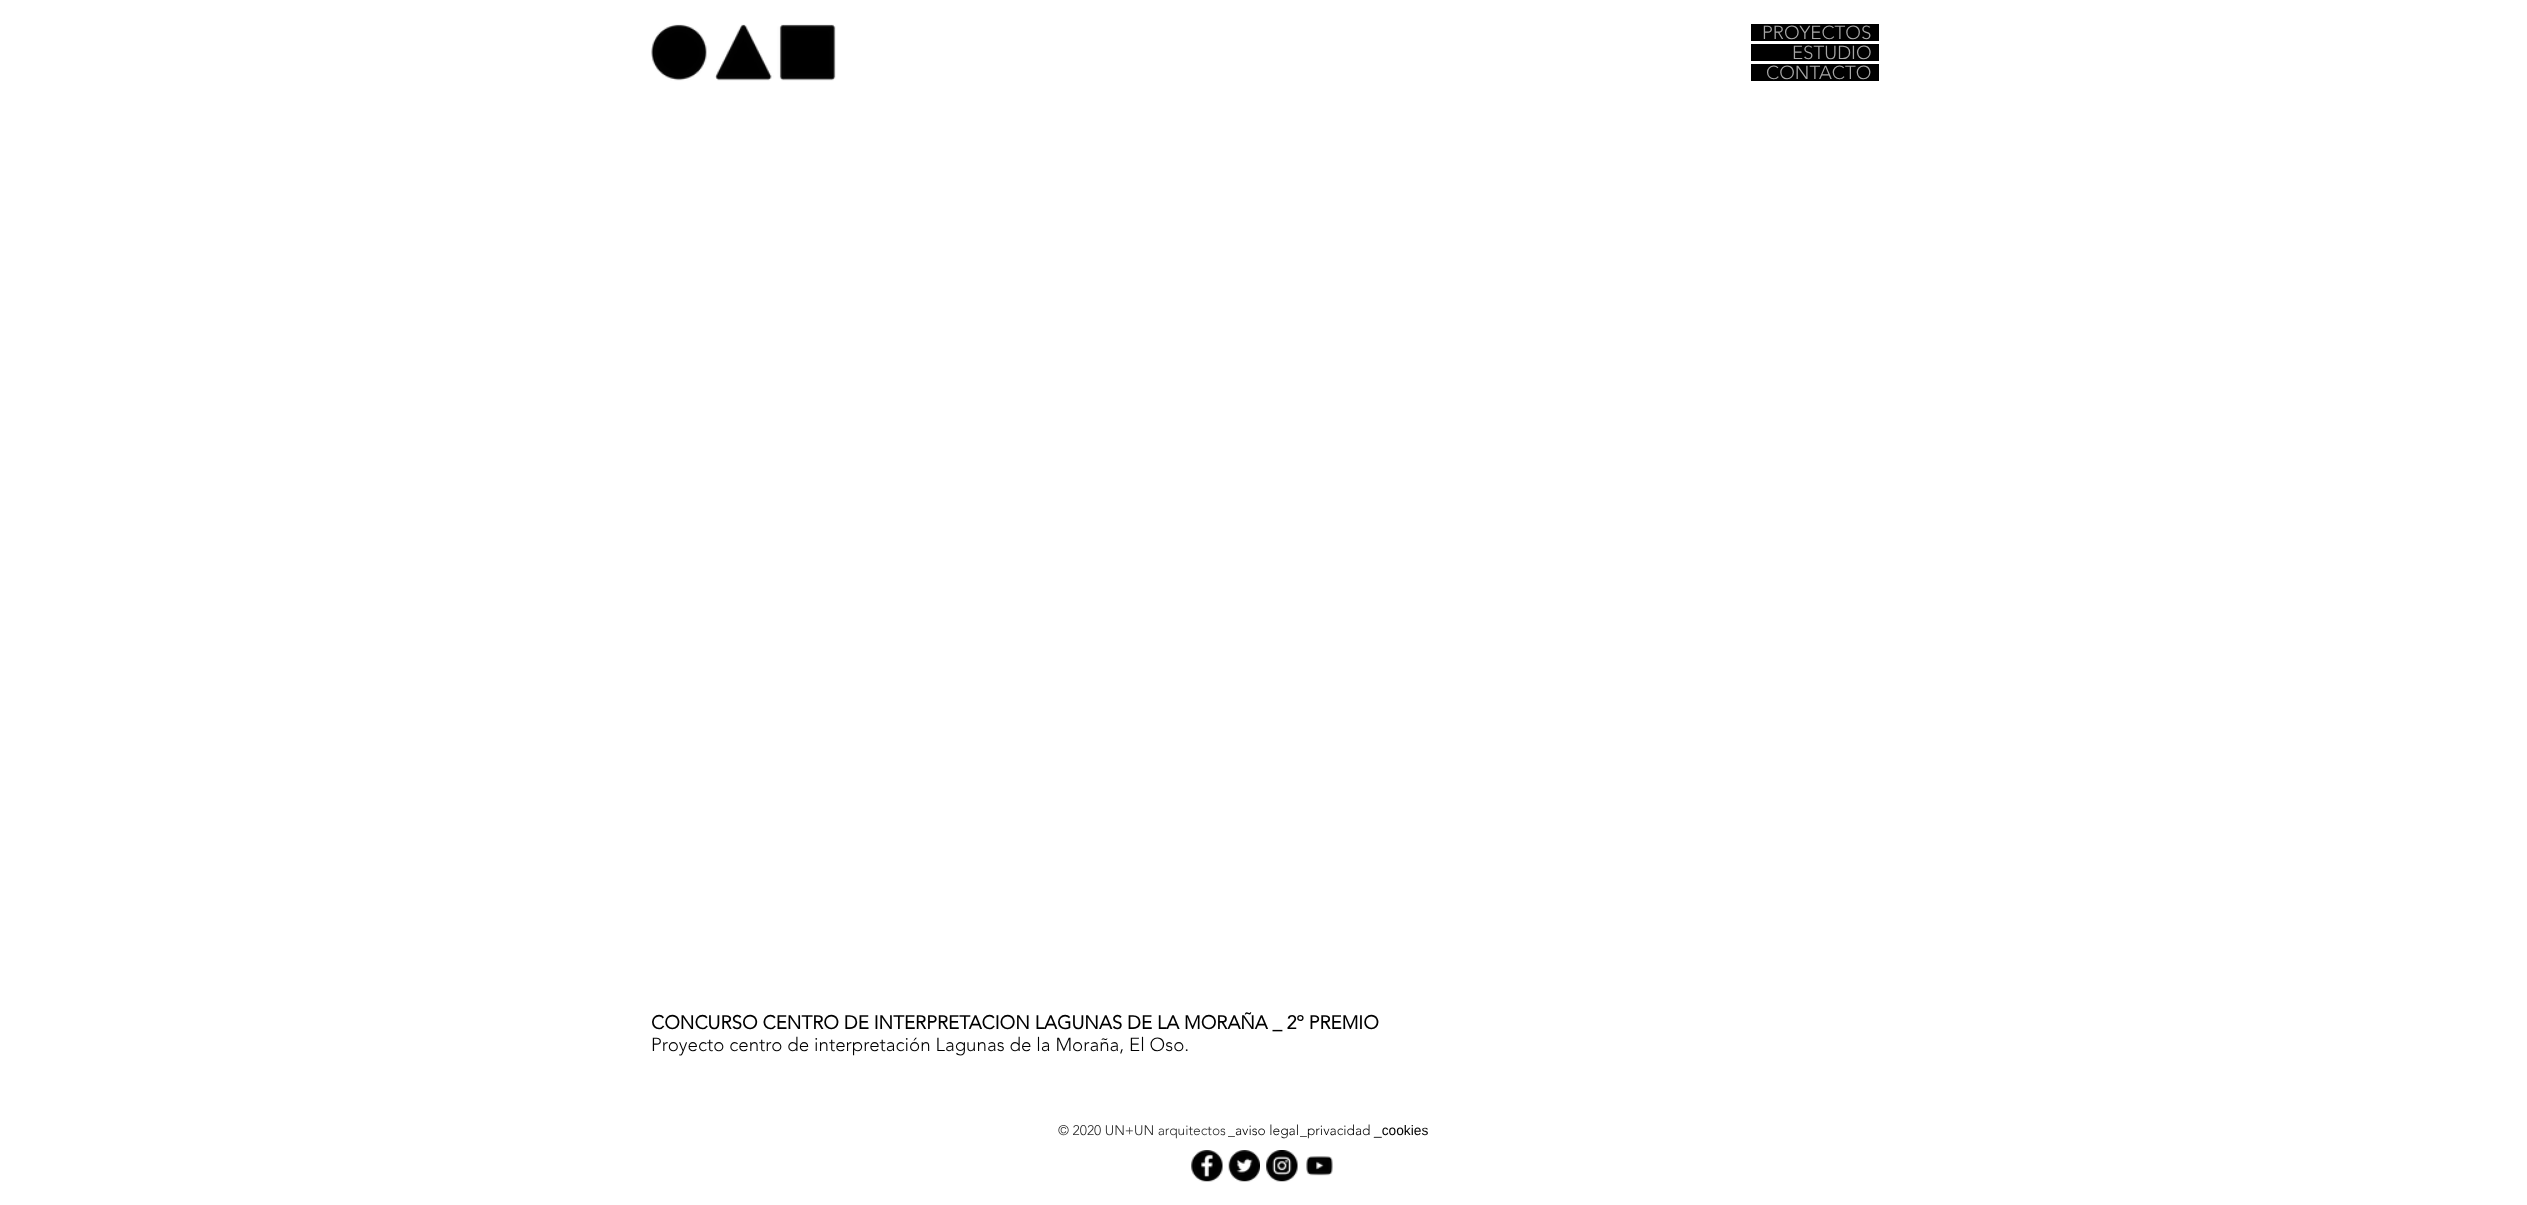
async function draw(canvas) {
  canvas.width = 2527
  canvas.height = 1205
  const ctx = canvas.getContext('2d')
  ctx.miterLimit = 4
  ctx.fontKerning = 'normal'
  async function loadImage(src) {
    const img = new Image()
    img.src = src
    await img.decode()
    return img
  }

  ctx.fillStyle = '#fff'
  ctx.fillRect(0, 0, 2527, 1205)
  ctx.drawImage(await loadImage('image0.png'), 651, 24, 185, 57)
  ctx.fillStyle = '#000'
  ctx.fillRect(1751, 24, 128, 17)
  ctx.font = '300 18.75px "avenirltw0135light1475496"'
  ctx.fillStyle = '#a6a6a6'
  ctx.fillText('PROYECTOS', 1762, 39)
  ctx.fillStyle = '#000'
  ctx.fillRect(1751, 44, 128, 17)
  ctx.fillStyle = '#a6a6a6'
  ctx.fillText('ESTUDIO', 1792, 59)
  ctx.fillStyle = '#000'
  ctx.fillRect(1751, 64, 128, 17)
  ctx.fillStyle = '#a6a6a6'
  ctx.fillText('CONTACTO', 1766, 79)
  ctx.font = 'bold 18.75px "avenirltw0135light1475496"'
  ctx.fillStyle = '#000'
  ctx.fillText('CONCURSO CENTRO DE INTERPRETACION LAGUNAS DE LA MORAÑA _ 2º PREMIO', 651, 1029)
  ctx.font = '300 18.75px "avenirltw0135light1475496"'
  ctx.fillText('Proyecto centro de interpretación Lagunas de la Moraña, El Oso.', 651, 1051)
  ctx.font = '300 13.75px "avenirltw0135light1475496"'
  ctx.fillStyle = '#272727'
  ctx.fillText('© 2020 UN+UN arquitectos', 1058, 1135)
  ctx.fillStyle = '#000'
  ctx.fillText('_aviso legal', 1228, 1135)
  ctx.fillText('_privacidad', 1300, 1135)
  ctx.font = '13.75px Liberation Sans'
  ctx.fillText('_cookies', 1374, 1135)
  ctx.drawImage(await loadImage('image1.png'), 1191, 1150, 32, 32)
  ctx.drawImage(await loadImage('image2.png'), 1228, 1150, 32, 32)
  ctx.drawImage(await loadImage('image3.png'), 1266, 1150, 32, 32)
  ctx.drawImage(await loadImage('image4.png'), 1306, 1156, 27, 20)
}

draw(document.querySelector('canvas'))
